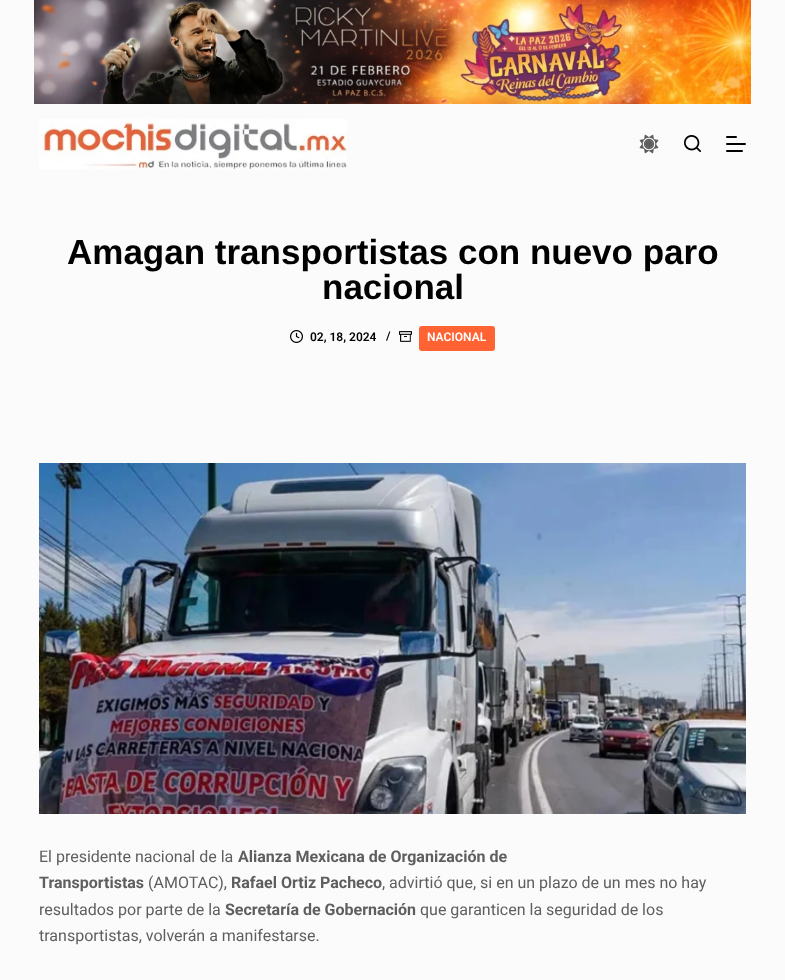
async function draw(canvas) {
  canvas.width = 785
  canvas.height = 980
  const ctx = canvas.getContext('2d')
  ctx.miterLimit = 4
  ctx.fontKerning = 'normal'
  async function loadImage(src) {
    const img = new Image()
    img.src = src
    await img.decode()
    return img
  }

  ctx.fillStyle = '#fbfbfc'
  ctx.fillRect(0, 0, 785, 980)
  ctx.drawImage(await loadImage('image0.png'), 34, 0, 717, 104)
  ctx.drawImage(await loadImage('image1.png'), 39, 119, 308, 50)
  ctx.drawImage(await loadImage('image2.png'), 639, 134, 20, 20)
  ctx.drawImage(await loadImage('image3.png'), 684, 135, 17, 17)
  ctx.fillStyle = '#000'
  ctx.beginPath()
  ctx.roundRect(726, 136, 11, 2, 1)
  ctx.fill()
  ctx.beginPath()
  ctx.roundRect(726, 143, 20, 2, 1)
  ctx.fill()
  ctx.beginPath()
  ctx.roundRect(726, 150, 17, 2, 1)
  ctx.fill()
  ctx.font = 'bold 35px Liberation Sans'
  ctx.fillText('Amagan transportistas con nuevo paro', 67, 264)
  ctx.fillText('nacional', 322, 299)
  ctx.drawImage(await loadImage('image4.png'), 290, 330, 13, 13)
  ctx.font = '600 12px Roboto'
  ctx.fillText('02, 18, 2024', 310, 341)
  ctx.fillText('/', 386, 340)
  ctx.drawImage(await loadImage('image5.png'), 399, 331, 13, 11)
  ctx.fillStyle = '#ff6233'
  ctx.beginPath()
  ctx.roundRect(419, 326, 76, 25, 3)
  ctx.fill()
  ctx.fillStyle = '#fff'
  ctx.fillText('NACIONAL', 427, 341)
  ctx.drawImage(await loadImage('image6.png'), 39, 463, 707, 351)
  ctx.font = '16px Roboto'
  ctx.fillStyle = '#5e5e5e'
  ctx.fillText('El presidente nacional de la', 39, 862)
  ctx.font = 'bold 16px Roboto'
  ctx.fillText('Alianza Mexicana de Organización de', 238, 862)
  ctx.fillText('Transportistas', 39, 888)
  ctx.font = '16px Roboto'
  ctx.fillText('(AMOTAC),', 148, 888)
  ctx.font = 'bold 16px Roboto'
  ctx.fillText('Rafael Ortiz Pacheco', 231, 888)
  ctx.font = '16px Roboto'
  ctx.fillText(', advirtió que, si en un plazo de un mes no hay', 382, 888)
  ctx.fillText('resultados por parte de la', 39, 915)
  ctx.font = 'bold 16px Roboto'
  ctx.fillText('Secretaría de Gobernación', 225, 915)
  ctx.font = '16px Roboto'
  ctx.fillText('que garanticen la seguridad de los', 420, 915)
  ctx.fillText('transportistas, volverán a manifestarse.', 39, 941)
}

draw(document.querySelector('canvas'))
